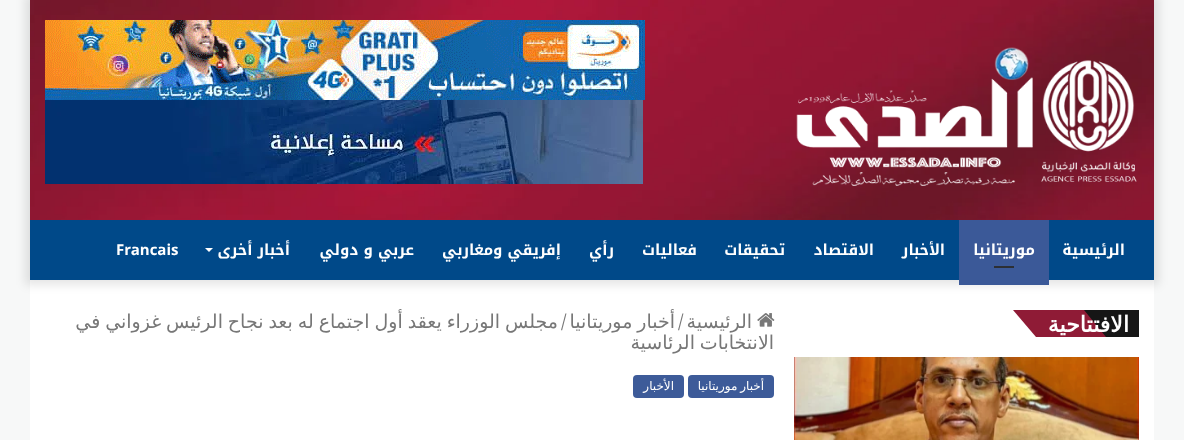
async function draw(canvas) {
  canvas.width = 1184
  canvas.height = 440
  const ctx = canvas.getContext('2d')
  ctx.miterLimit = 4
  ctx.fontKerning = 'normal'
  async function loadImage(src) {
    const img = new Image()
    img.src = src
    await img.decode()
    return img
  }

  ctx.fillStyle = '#f7f8f8'
  ctx.fillRect(0, 0, 1184, 440)
  ctx.fillStyle = '#fff'
  ctx.fillRect(30, 280, 1124, 160)
  ctx.fillStyle = '#0000001a'
  ctx.filter = 'blur(5px)'
  ctx.beginPath()
  ctx.rect(25, -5, 1134, 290)
  ctx.fill()
  ctx.filter = 'none'
  ctx.drawImage(await loadImage('image0.png'), 30, 0, 1124, 220)
  ctx.drawImage(await loadImage('image1.png'), 796, 47, 341, 139)
  ctx.drawImage(await loadImage('image2.png'), 45, 20, 600, 80)
  ctx.drawImage(await loadImage('image3.png'), 45, 100, 598, 84)
  ctx.fillStyle = '#004989'
  ctx.fillRect(30, 220, 1124, 60)
  ctx.direction = 'rtl'
  ctx.font = 'bold 15px Noto Kufi Arabic'
  ctx.fillStyle = '#fff'
  ctx.fillText('الرئيسية', 1125, 255)
  ctx.fillStyle = '#3b5998'
  ctx.fillRect(959, 220, 90, 65)
  ctx.fillStyle = '#fff'
  ctx.fillText('موريتانيا', 1035, 255)
  ctx.fillStyle = '#2c2f34'
  ctx.fillRect(994, 266, 20, 2)
  ctx.fillStyle = '#fff'
  ctx.fillText('الأخبار', 945, 255)
  ctx.fillText('الاقتصاد', 874, 255)
  ctx.fillText('تحقيقات', 785, 255)
  ctx.fillText('فعاليات', 697, 255)
  ctx.fillText('رأي', 614, 255)
  ctx.fillText('إفريقي ومغاربي', 561, 255)
  ctx.fillText('عربي و دولي', 414, 255)
  ctx.fillText('أخبار أخرى', 290, 255)
  ctx.beginPath()
  ctx.moveTo(205, 248)
  ctx.lineTo(213, 248)
  ctx.lineTo(209, 252)
  ctx.closePath()
  ctx.fill()
  ctx.direction = 'ltr'
  ctx.fillText('Francais', 116, 255)
  ctx.fillStyle = '#161616'
  ctx.fillRect(1084, 310, 55, 27)
  ctx.fillStyle = '#8f1b36'
  ctx.beginPath()
  ctx.moveTo(1013, 310)
  ctx.lineTo(1084, 310)
  ctx.lineTo(1106, 337)
  ctx.lineTo(1036, 337)
  ctx.closePath()
  ctx.fill()
  ctx.direction = 'rtl'
  ctx.font = 'bold 22px DejaVu Sans'
  ctx.fillStyle = '#fff'
  ctx.fillText('الافتتاحية', 1129, 332)
  ctx.drawImage(await loadImage('image4.png'), 794, 357, 345, 83)
  ctx.wordSpacing = '-1.1px'
  ctx.font = '19px DejaVu Sans'
  ctx.fillStyle = '#777'
  ctx.fillText('أخبار موريتانيا', 675, 328)
  ctx.wordSpacing = '0px'
  ctx.direction = 'ltr'
  ctx.font = '19px Noto Serif'
  ctx.fillText('/', 561, 328)
  ctx.wordSpacing = '-1.1px'
  ctx.direction = 'rtl'
  ctx.font = '19px DejaVu Sans'
  ctx.fillText('مجلس الوزراء يعقد أول اجتماع له بعد نجاح الرئيس غزواني في', 558, 328)
  ctx.drawImage(await loadImage('image5.png'), 757, 313, 18, 14)
  ctx.wordSpacing = '0px'
  ctx.fillText('الرئيسية', 752, 328)
  ctx.direction = 'ltr'
  ctx.font = '19px Noto Serif'
  ctx.fillText('/', 678, 328)
  ctx.wordSpacing = '-1.1px'
  ctx.direction = 'rtl'
  ctx.font = '19px DejaVu Sans'
  ctx.fillText('الانتخابات الرئاسية', 774, 349)
  ctx.fillStyle = '#3d5b99'
  ctx.beginPath()
  ctx.roundRect(688, 375, 86, 23, 4)
  ctx.fill()
  ctx.wordSpacing = '-1px'
  ctx.font = '12px DejaVu Sans'
  ctx.fillStyle = '#fff'
  ctx.fillText('أخبار موريتانيا', 764, 390)
  ctx.fillStyle = '#3d5b99'
  ctx.beginPath()
  ctx.roundRect(633, 375, 51, 23, 4)
  ctx.fill()
  ctx.wordSpacing = '0px'
  ctx.fillStyle = '#fff'
  ctx.fillText('الأخبار', 674, 390)
}

draw(document.querySelector('canvas'))
